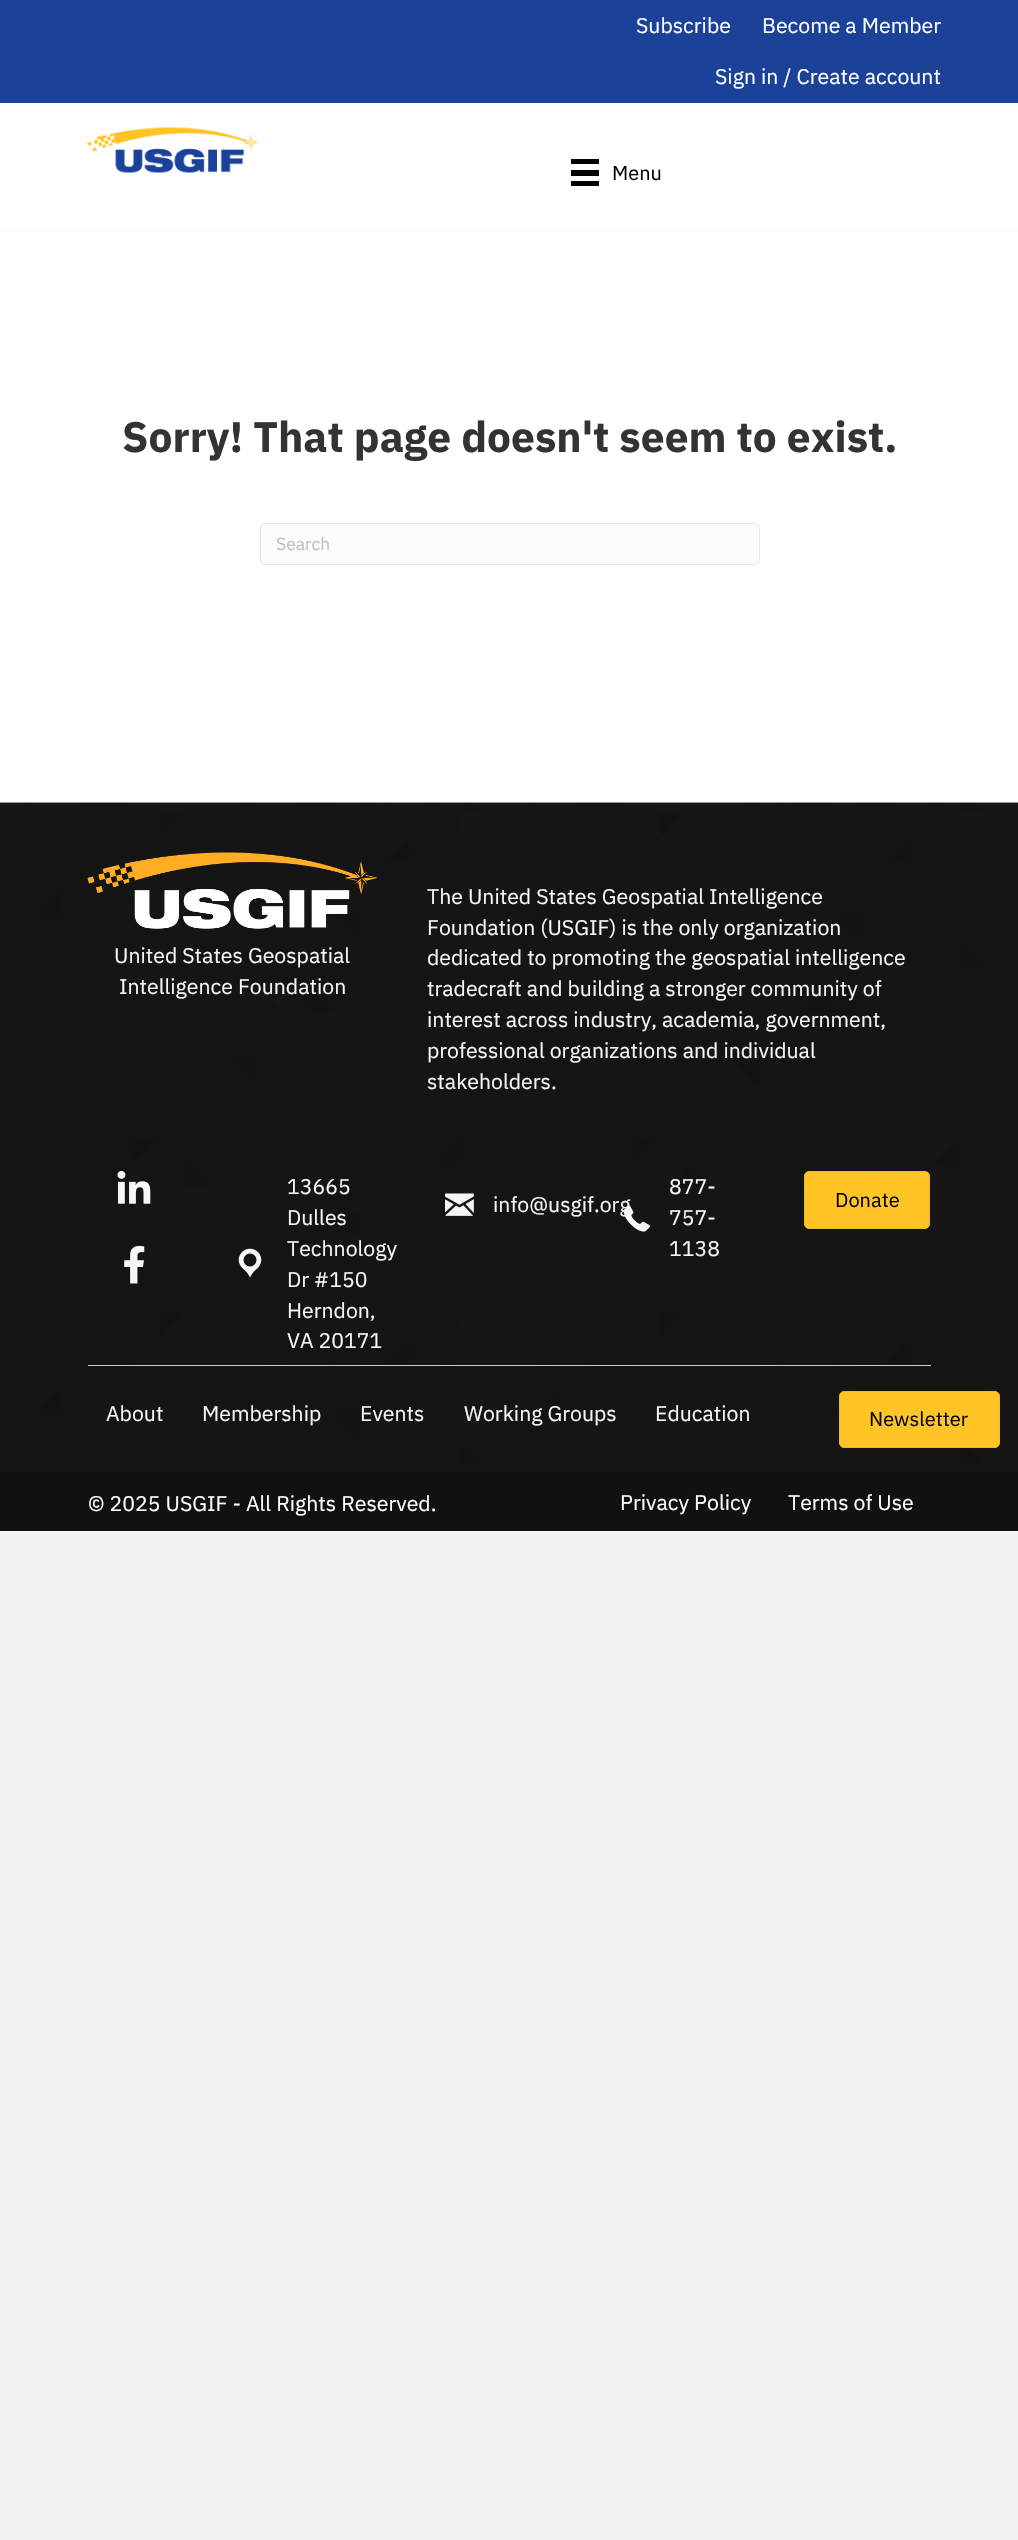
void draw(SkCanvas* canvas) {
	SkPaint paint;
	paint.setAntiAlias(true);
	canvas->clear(0xfff2f2f2);
	paint.setColor(0xff1b4298);
	canvas->drawRect(SkRect::MakeXYWH(0, 0, 1018, 103), paint);
	SkFont f1(fontMgr->matchFamilyStyle("IBM Plex Sans", SkFontStyle::Normal()), 21.25);
	f1.setSubpixel(true);
	paint.setColor(0xffffffff);
	canvas->drawString("Subscribe", 636, 33, f1, paint);
	canvas->drawString("Become a Member", 762, 33, f1, paint);
	canvas->drawString("Sign in / Create account", 715, 84, f1, paint);
	canvas->drawRect(SkRect::MakeXYWH(0, 103, 1018, 127), paint);
	paint.setColor(0xfff6f6f6);
	canvas->drawRect(SkRect::MakeXYWH(0, 230, 1018, 1), paint);
	canvas->drawImageRect(SkImages::DeferredFromEncodedData(SkData::MakeFromFileName("img1.png")), SkRect::MakeXYWH(87, 127, 174, 46), SkSamplingOptions());
	paint.setColor(0xff000000);
	canvas->drawRect(SkRect::MakeXYWH(571, 159, 28, 5), paint);
	canvas->drawRect(SkRect::MakeXYWH(571, 170, 28, 6), paint);
	canvas->drawRect(SkRect::MakeXYWH(571, 181, 28, 5), paint);
	SkFont f2(fontMgr->matchFamilyStyle("IBM Plex Sans", SkFontStyle::Normal()), 20);
	f2.setSubpixel(true);
	canvas->drawString("Menu", 612, 180, f2, paint);
	paint.setColor(0xffffffff);
	canvas->drawRect(SkRect::MakeXYWH(0, 231, 1018, 572), paint);
	SkFont f3(fontMgr->matchFamilyStyle("IBM Plex Sans", SkFontStyle::Bold()), 42.5);
	f3.setSubpixel(true);
	paint.setColor(0xff333333);
	canvas->drawString("Sorry! That page doesn't seem to exist.", 122, 452, f3, paint);
	paint.setColor(0xfffcfcfc);
	canvas->drawRoundRect(SkRect::MakeXYWH(260.5, 523.5, 499, 41), 4.5, 4.5, paint);
	paint.setStroke(true);
	paint.setStrokeWidth(1);
	paint.setColor(0xffe6e6e6);
	canvas->drawRoundRect(SkRect::MakeXYWH(260.5, 523.5, 499, 41), 4.5, 4.5, paint);
	SkFont f4(fontMgr->matchFamilyStyle("IBM Plex Sans", SkFontStyle::Normal()), 17.5);
	f4.setSubpixel(true);
	paint.setStroke(false);
	paint.setColor(0xffc0c0c0);
	canvas->drawString("Search", 276, 550, f4, paint);
	paint.setColor(0xff0d0d0d);
	canvas->drawRect(SkRect::MakeXYWH(0, 1472, 1018, 1), paint);
	canvas->drawImageRect(SkImages::DeferredFromEncodedData(SkData::MakeFromFileName("img2.png")), SkRect::MakeXYWH(0, 802, 1018, 671), SkSamplingOptions());
	canvas->drawImageRect(SkImages::DeferredFromEncodedData(SkData::MakeFromFileName("img3.png")), SkRect::MakeXYWH(87, 852, 291, 77), SkSamplingOptions());
	paint.setColor(0xfff6f6f6);
	canvas->drawString("United States Geospatial", 114, 963, f1, paint);
	canvas->drawString("Intelligence Foundation", 119, 994, f1, paint);
	canvas->drawString("The United States Geospatial Intelligence", 427, 904, f1, paint);
	canvas->drawString("Foundation (USGIF) is the only organization", 427, 935, f1, paint);
	canvas->drawString("dedicated to promoting the geospatial intelligence", 427, 965, f1, paint);
	canvas->drawString("tradecraft and building a stronger community of", 427, 996, f1, paint);
	canvas->drawString("interest across industry, academia, government,", 427, 1027, f1, paint);
	canvas->drawString("professional organizations and individual", 427, 1058, f1, paint);
	canvas->drawString("stakeholders.", 427, 1089, f1, paint);
	canvas->drawImageRect(SkImages::DeferredFromEncodedData(SkData::MakeFromFileName("img4.png")), SkRect::MakeXYWH(117, 1170, 34, 34), SkSamplingOptions());
	canvas->drawImageRect(SkImages::DeferredFromEncodedData(SkData::MakeFromFileName("img5.png")), SkRect::MakeXYWH(124, 1245, 21, 39), SkSamplingOptions());
	canvas->drawImageRect(SkImages::DeferredFromEncodedData(SkData::MakeFromFileName("img6.png")), SkRect::MakeXYWH(238, 1248, 24, 30), SkSamplingOptions());
	canvas->drawString("13665", 287, 1194, f1, paint);
	canvas->drawString("Dulles", 287, 1225, f1, paint);
	canvas->drawString("Technology", 287, 1256, f1, paint);
	canvas->drawString("Dr #150", 287, 1287, f1, paint);
	canvas->drawString("Herndon,", 287, 1318, f1, paint);
	canvas->drawString("VA 20171", 287, 1348, f1, paint);
	canvas->drawImageRect(SkImages::DeferredFromEncodedData(SkData::MakeFromFileName("img7.png")), SkRect::MakeXYWH(445, 1193, 29, 23), SkSamplingOptions());
	canvas->drawString("info@usgif.org", 493, 1212, f1, paint);
	canvas->drawImageRect(SkImages::DeferredFromEncodedData(SkData::MakeFromFileName("img8.png")), SkRect::MakeXYWH(623, 1205, 27, 27), SkSamplingOptions());
	canvas->drawString("877-", 669, 1194, f1, paint);
	canvas->drawString("757-", 669, 1225, f1, paint);
	canvas->drawString("1138", 669, 1256, f1, paint);
	paint.setColor(0xffffc425);
	canvas->drawRoundRect(SkRect::MakeXYWH(804.5, 1171.5, 125, 57), 4.5, 4.5, paint);
	paint.setStroke(true);
	paint.setColor(0xfff3b819);
	canvas->drawRoundRect(SkRect::MakeXYWH(804.5, 1171.5, 125, 57), 4.5, 4.5, paint);
	paint.setStroke(false);
	paint.setColor(0xff000000);
	canvas->drawString("Donate", 835, 1207, f2, paint);
	paint.setColor(0xffcccccc);
	canvas->drawRect(SkRect::MakeXYWH(88, 1365, 843, 1), paint);
	paint.setColor(0xfff6f6f6);
	canvas->drawString("About", 106, 1421, f1, paint);
	canvas->drawString("Membership", 202, 1421, f1, paint);
	canvas->drawString("Events", 360, 1421, f1, paint);
	canvas->drawString("Working Groups", 464, 1421, f1, paint);
	canvas->drawString("Education", 655, 1421, f1, paint);
	paint.setColor(0xffffc425);
	canvas->drawRoundRect(SkRect::MakeXYWH(839.5, 1391.5, 160, 56), 4.5, 4.5, paint);
	paint.setStroke(true);
	paint.setColor(0xfff3b819);
	canvas->drawRoundRect(SkRect::MakeXYWH(839.5, 1391.5, 160, 56), 4.5, 4.5, paint);
	paint.setStroke(false);
	paint.setColor(0xff000000);
	canvas->drawString("Newsletter", 869, 1426, f2, paint);
	paint.setColor(0xff111111);
	canvas->drawRect(SkRect::MakeXYWH(0, 1473, 1018, 58), paint);
	paint.setColor(0xffffffff);
	canvas->drawString("© 2025 USGIF - All Rights Reserved.", 88, 1511, f1, paint);
	canvas->drawString("Privacy Policy", 620, 1510, f1, paint);
	canvas->drawString("Terms of Use", 788, 1510, f1, paint);
}
